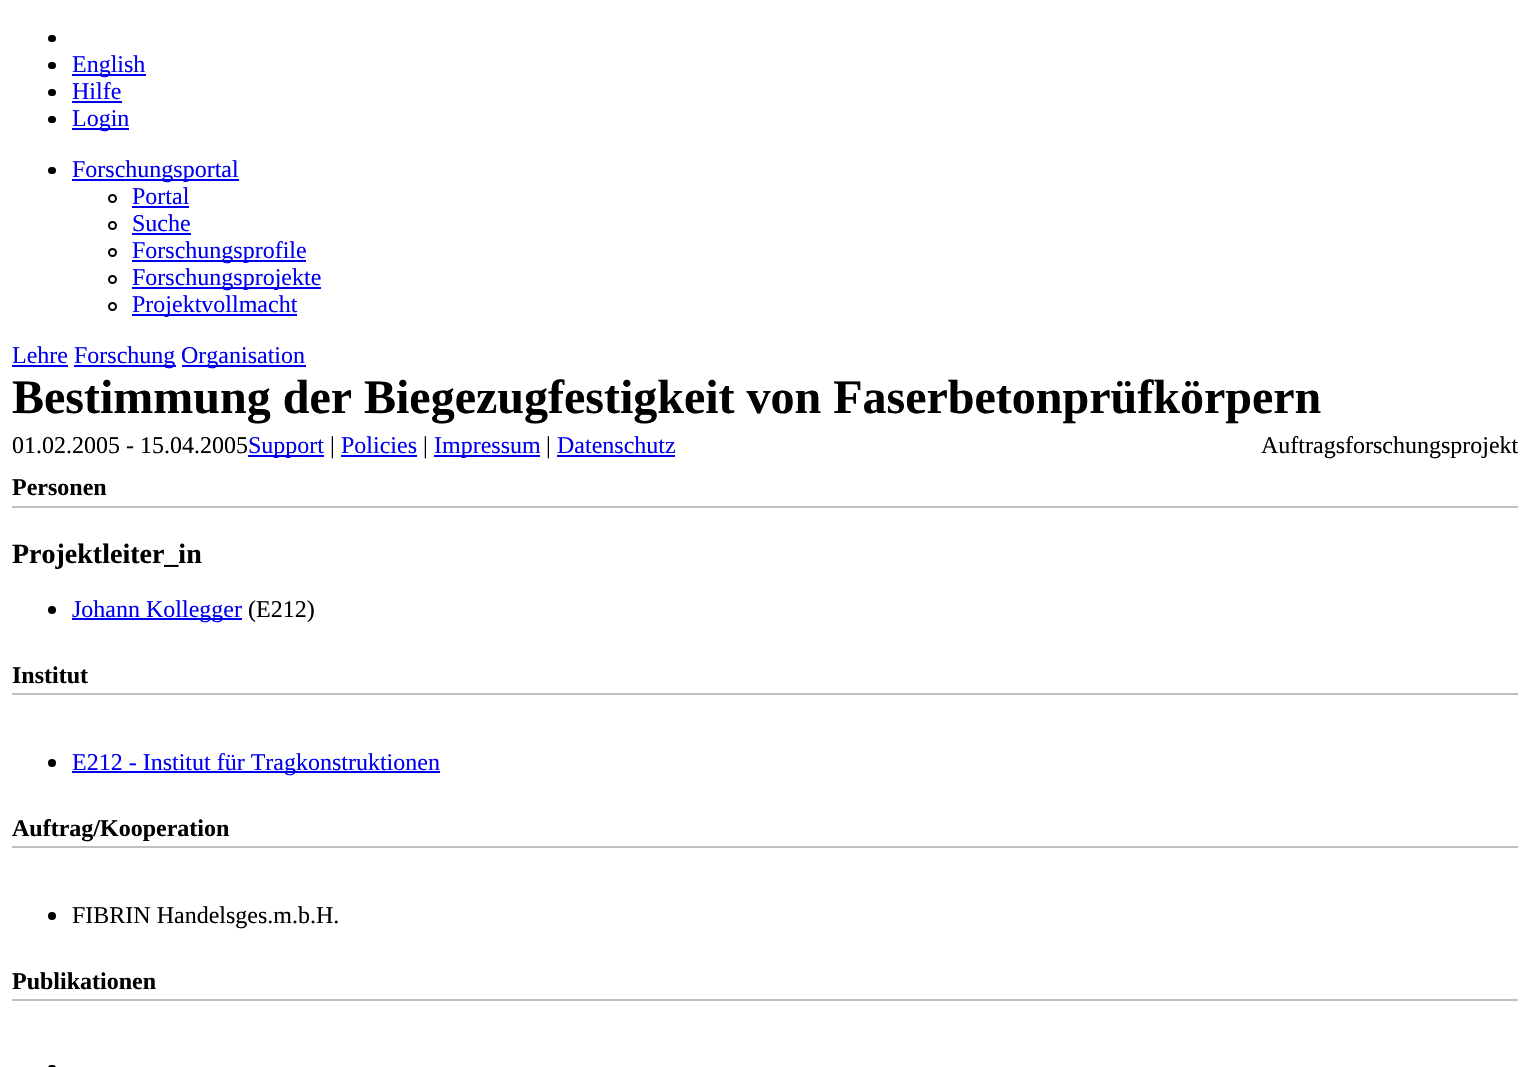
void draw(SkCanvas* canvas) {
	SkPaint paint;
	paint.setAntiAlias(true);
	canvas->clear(0xffffffff);
	paint.setColor(0xff000000);
	canvas->drawRoundRect(SkRect::MakeXYWH(48, 35, 8, 7), 3.5, 3.5, paint);
	canvas->drawRoundRect(SkRect::MakeXYWH(48, 62, 8, 7), 3.5, 3.5, paint);
	paint.setColor(0xff0000ee);
	canvas->drawRect(SkRect::MakeXYWH(72, 74, 74, 2), paint);
	SkFont f1(fontMgr->matchFamilyStyle("Liberation Serif", SkFontStyle::Normal()), 24);
	f1.setSubpixel(true);
	canvas->drawString("English", 72, 72, f1, paint);
	paint.setColor(0xff000000);
	canvas->drawRoundRect(SkRect::MakeXYWH(48, 89, 8, 7), 3.5, 3.5, paint);
	paint.setColor(0xff0000ee);
	canvas->drawString("Hilfe", 72, 99, f1, paint);
	canvas->drawRect(SkRect::MakeXYWH(72, 101, 50, 2), paint);
	paint.setColor(0xff000000);
	canvas->drawRoundRect(SkRect::MakeXYWH(48, 116, 8, 7), 3.5, 3.5, paint);
	paint.setColor(0xff0000ee);
	canvas->drawRect(SkRect::MakeXYWH(72, 128, 57, 2), paint);
	canvas->drawString("Login", 72, 126, f1, paint);
	paint.setColor(0xff000000);
	canvas->drawRoundRect(SkRect::MakeXYWH(48, 167, 8, 7), 3.5, 3.5, paint);
	paint.setColor(0xff0000ee);
	canvas->drawRect(SkRect::MakeXYWH(72, 179, 167, 2), paint);
	canvas->drawString("Forschungsportal", 72, 177, f1, paint);
	paint.setStroke(true);
	paint.setStrokeWidth(2);
	paint.setColor(0xff000000);
	canvas->drawCircle(112.5, 198.5, 3.5, paint);
	paint.setStroke(false);
	paint.setColor(0xff0000ee);
	canvas->drawString("Portal", 132, 204, f1, paint);
	canvas->drawRect(SkRect::MakeXYWH(132, 206, 57, 2), paint);
	paint.setStroke(true);
	paint.setColor(0xff000000);
	canvas->drawCircle(112.5, 225.5, 3.5, paint);
	paint.setStroke(false);
	paint.setColor(0xff0000ee);
	canvas->drawString("Suche", 132, 231, f1, paint);
	canvas->drawRect(SkRect::MakeXYWH(132, 233, 59, 2), paint);
	paint.setStroke(true);
	paint.setColor(0xff000000);
	canvas->drawCircle(112.5, 252.5, 3.5, paint);
	paint.setStroke(false);
	paint.setColor(0xff0000ee);
	canvas->drawRect(SkRect::MakeXYWH(132, 260, 174, 2), paint);
	canvas->drawString("Forschungsprofile", 132, 258, f1, paint);
	paint.setStroke(true);
	paint.setColor(0xff000000);
	canvas->drawCircle(112.5, 279.5, 3.5, paint);
	paint.setStroke(false);
	paint.setColor(0xff0000ee);
	canvas->drawRect(SkRect::MakeXYWH(132, 287, 189, 2), paint);
	canvas->drawString("Forschungsprojekte", 132, 285, f1, paint);
	paint.setStroke(true);
	paint.setColor(0xff000000);
	canvas->drawCircle(112.5, 306.5, 3.5, paint);
	paint.setStroke(false);
	paint.setColor(0xff0000ee);
	canvas->drawRect(SkRect::MakeXYWH(132, 314, 165, 2), paint);
	canvas->drawString("Projektvollmacht", 132, 312, f1, paint);
	canvas->drawString("Lehre", 12, 363, f1, paint);
	canvas->drawRect(SkRect::MakeXYWH(12, 365, 56, 2), paint);
	canvas->drawRect(SkRect::MakeXYWH(74, 365, 102, 2), paint);
	canvas->drawString("Forschung", 74, 363, f1, paint);
	canvas->drawRect(SkRect::MakeXYWH(182, 365, 124, 2), paint);
	canvas->drawString("Organisation", 181, 363, f1, paint);
	SkFont f2(fontMgr->matchFamilyStyle("Liberation Serif", SkFontStyle::Bold()), 48);
	f2.setSubpixel(true);
	paint.setColor(0xff000000);
	canvas->drawString("Bestimmung der Biegezugfestigkeit von Faserbetonprüfkörpern", 12, 413, f2, paint);
	canvas->drawString("01.02.2005 - 15.04.2005", 12, 453, f1, paint);
	canvas->drawString("Auftragsforschungsprojekt", 1261, 453, f1, paint);
	paint.setColor(0xffc0c0c0);
	canvas->drawRect(SkRect::MakeXYWH(12, 506, 1506, 2), paint);
	SkFont f3(fontMgr->matchFamilyStyle("Liberation Serif", SkFontStyle::Bold()), 24);
	f3.setSubpixel(true);
	paint.setColor(0xff000000);
	canvas->drawString("Personen", 12, 495, f3, paint);
	SkFont f4(fontMgr->matchFamilyStyle("Liberation Serif", SkFontStyle::Bold()), 28);
	f4.setSubpixel(true);
	canvas->drawString("Projektleiter_in", 12, 563, f4, paint);
	canvas->drawCircle(52, 610, 4, paint);
	paint.setColor(0xff0000ee);
	canvas->drawRect(SkRect::MakeXYWH(72, 618, 170, 2), paint);
	canvas->drawString("Johann Kollegger", 72, 617, f1, paint);
	paint.setColor(0xff000000);
	canvas->drawString("(E212)", 248, 617, f1, paint);
	paint.setColor(0xffc0c0c0);
	canvas->drawRect(SkRect::MakeXYWH(12, 693, 1506, 2), paint);
	paint.setColor(0xff000000);
	canvas->drawString("Institut", 12, 683, f3, paint);
	canvas->drawCircle(52, 763, 4, paint);
	paint.setColor(0xff0000ee);
	canvas->drawRect(SkRect::MakeXYWH(72, 771, 368, 2), paint);
	canvas->drawString("E212 - Institut für Tragkonstruktionen", 72, 770, f1, paint);
	paint.setColor(0xffc0c0c0);
	canvas->drawRect(SkRect::MakeXYWH(12, 846, 1506, 2), paint);
	paint.setColor(0xff000000);
	canvas->drawString("Auftrag/Kooperation", 12, 836, f3, paint);
	canvas->drawCircle(52, 916, 4, paint);
	canvas->drawString("FIBRIN Handelsges.m.b.H.", 72, 923, f1, paint);
	paint.setColor(0xffc0c0c0);
	canvas->drawRect(SkRect::MakeXYWH(12, 999, 1506, 2), paint);
	paint.setColor(0xff000000);
	canvas->drawString("Publikationen", 12, 989, f3, paint);
	canvas->drawRoundRect(SkRect::MakeXYWH(48, 1065, 8, 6), 4, 4, paint);
	paint.setColor(0xff0000ee);
	canvas->drawRect(SkRect::MakeXYWH(248, 455, 76, 2), paint);
	canvas->drawString("Support", 248, 453, f1, paint);
	paint.setColor(0xff000000);
	canvas->drawString("|", 330, 453, f1, paint);
	paint.setColor(0xff0000ee);
	canvas->drawString("Policies", 341, 453, f1, paint);
	canvas->drawRect(SkRect::MakeXYWH(341, 455, 76, 2), paint);
	paint.setColor(0xff000000);
	canvas->drawString("|", 423, 453, f1, paint);
	paint.setColor(0xff0000ee);
	canvas->drawRect(SkRect::MakeXYWH(434, 455, 106, 2), paint);
	canvas->drawString("Impressum", 434, 453, f1, paint);
	paint.setColor(0xff000000);
	canvas->drawString("|", 546, 453, f1, paint);
	paint.setColor(0xff0000ee);
	canvas->drawString("Datenschutz", 557, 453, f1, paint);
	canvas->drawRect(SkRect::MakeXYWH(557, 455, 118, 2), paint);
}
